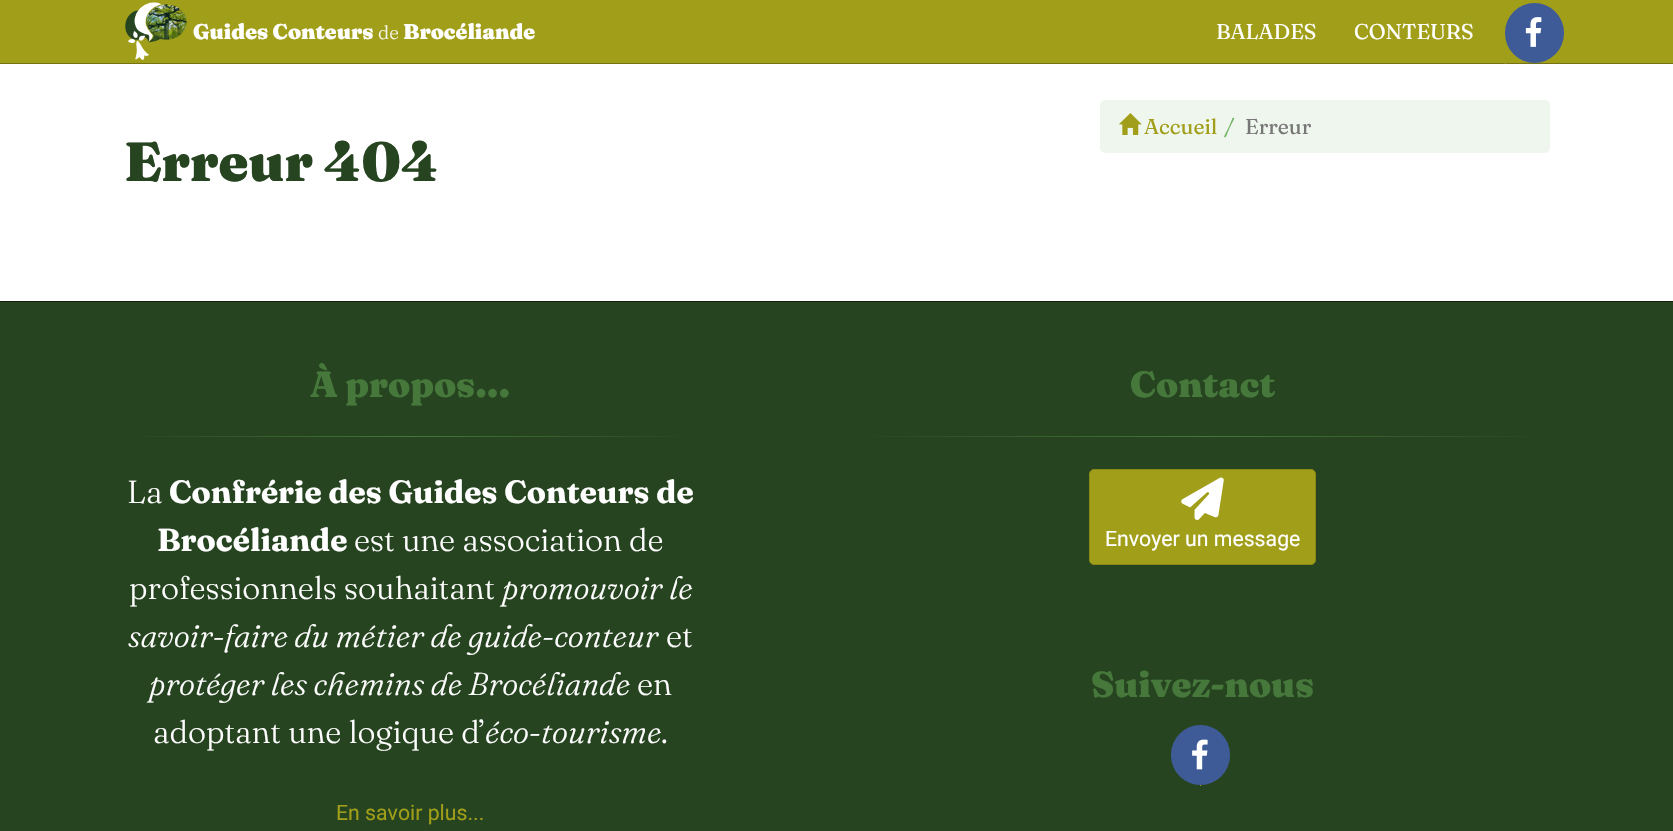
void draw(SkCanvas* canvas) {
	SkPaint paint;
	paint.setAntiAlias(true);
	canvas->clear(0xffffffff);
	paint.setColor(0xffa19f19);
	canvas->drawRect(SkRect::MakeXYWH(0, 0, 1673, 63), paint);
	paint.setColor(0xff757312);
	canvas->drawRect(SkRect::MakeXYWH(0, 63, 1673, 1), paint);
	canvas->drawImageRect(SkImages::DeferredFromEncodedData(SkData::MakeFromFileName("img1.png")), SkRect::MakeXYWH(125, 2, 62, 58), SkSamplingOptions());
	SkFont f1(fontMgr->matchFamilyStyle("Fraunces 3", SkFontStyle(900, SkFontStyle::kNormal_Width, SkFontStyle::kUpright_Slant)), 21.25);
	f1.setSubpixel(true);
	paint.setColor(0xffffffff);
	canvas->drawString("Guides Conteurs", 193, 39, f1, paint);
	SkFont f2(fontMgr->matchFamilyStyle("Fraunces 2", SkFontStyle(300, SkFontStyle::kNormal_Width, SkFontStyle::kUpright_Slant)), 19);
	f2.setSubpixel(true);
	paint.setColor(0xfff6f5e8);
	canvas->drawString("de", 378, 39, f2, paint);
	paint.setColor(0xffffffff);
	canvas->drawString("Brocéliande", 403, 39, f1, paint);
	SkFont f3(fontMgr->matchFamilyStyle("Fraunces", SkFontStyle::Normal()), 21.25);
	f3.setSubpixel(true);
	canvas->drawString("BALADES", 1216, 39, f3, paint);
	canvas->drawString("CONTEURS", 1354, 39, f3, paint);
	paint.setColor(0xffa19f19);
	canvas->drawRect(SkRect::MakeXYWH(1505, 63, 1, 1), paint);
	paint.setColor(0xff3e5b98);
	canvas->drawRoundRect(SkRect::MakeXYWH(1505, 3, 59, 60), 29.5, 29.5, paint);
	canvas->drawImageRect(SkImages::DeferredFromEncodedData(SkData::MakeFromFileName("img2.png")), SkRect::MakeXYWH(1525, 17, 17, 30), SkSamplingOptions());
	paint.setColor(0xffeff6ed);
	canvas->drawRoundRect(SkRect::MakeXYWH(1100, 100, 450, 53), 5, 5, paint);
	canvas->drawImageRect(SkImages::DeferredFromEncodedData(SkData::MakeFromFileName("img3.png")), SkRect::MakeXYWH(1119, 113, 23, 22), SkSamplingOptions());
	paint.setColor(0xffa19f19);
	canvas->drawString("Accueil", 1144, 134, f3, paint);
	paint.setColor(0xff72b464);
	canvas->drawString("/", 1224, 134, f3, paint);
	paint.setColor(0xff777777);
	canvas->drawString("Erreur", 1245, 134, f3, paint);
	SkFont f4(fontMgr->matchFamilyStyle("Fraunces", SkFontStyle(900, SkFontStyle::kNormal_Width, SkFontStyle::kUpright_Slant)), 55);
	f4.setSubpixel(true);
	paint.setColor(0xff274421);
	canvas->drawString("Erreur 404", 124, 181, f4, paint);
	canvas->drawRect(SkRect::MakeXYWH(0, 302, 1673, 529), paint);
	paint.setColor(0xff132210);
	canvas->drawRect(SkRect::MakeXYWH(0, 301, 1673, 1), paint);
	SkFont f5(fontMgr->matchFamilyStyle("Fraunces 2", SkFontStyle(900, SkFontStyle::kNormal_Width, SkFontStyle::kUpright_Slant)), 36.25);
	f5.setSubpixel(true);
	paint.setColor(0xff45783a);
	canvas->drawString("À propos...", 310, 397, f5, paint);
	{
		const SkColor colors[] = {0xff274421, 0xff45783a, 0xff274421};
		const float stops[] = {0, 0.5, 1};
		const SkPoint ends[] = {{125, 437}, {696, 437}};
		paint.setShader(SkGradientShader::MakeLinear(ends, colors, stops, 3, SkTileMode::kClamp));
		paint.setAlpha(255);
	}
	canvas->drawRect(SkRect::MakeXYWH(139, 436, 543, 1), paint);
	SkFont f6(fontMgr->matchFamilyStyle("Fraunces", SkFontStyle(300, SkFontStyle::kNormal_Width, SkFontStyle::kUpright_Slant)), 31.9);
	f6.setSubpixel(true);
	paint.setShader(nullptr);
	paint.setColor(0xffffffff);
	canvas->drawString("La", 127, 503, f6, paint);
	SkFont f7(fontMgr->matchFamilyStyle("Fraunces", SkFontStyle::Bold()), 31.9);
	f7.setSubpixel(true);
	canvas->drawString("Confrérie des Guides Conteurs de", 169, 503, f7, paint);
	canvas->drawString("Brocéliande", 157, 551, f7, paint);
	canvas->drawString("est une association de", 354, 551, f6, paint);
	canvas->drawString("professionnels souhaitant", 129, 599, f6, paint);
	SkFont f8(fontMgr->matchFamilyStyle("Fraunces", SkFontStyle(300, SkFontStyle::kNormal_Width, SkFontStyle::kItalic_Slant)), 31.9);
	f8.setSubpixel(true);
	canvas->drawString("promouvoir le", 502, 599, f8, paint);
	canvas->drawString("savoir-faire du métier de guide-conteur", 128, 647, f8, paint);
	canvas->drawString("et", 666, 647, f6, paint);
	canvas->drawString("protéger les chemins de Brocéliande", 149, 695, f8, paint);
	canvas->drawString("en", 637, 695, f6, paint);
	canvas->drawString("adoptant une logique d’", 153, 743, f6, paint);
	canvas->drawString("éco-tourisme", 485, 743, f8, paint);
	canvas->drawString(".", 661, 743, f6, paint);
	SkFont f9(fontMgr->matchFamilyStyle("Roboto", SkFontStyle::Normal()), 21.25);
	f9.setSubpixel(true);
	paint.setColor(0xffa19f19);
	canvas->drawString("En savoir plus...", 336, 820, f9, paint);
	paint.setColor(0xff45783a);
	canvas->drawString("Contact", 1130, 397, f5, paint);
	{
		const SkColor colors[] = {0xff274421, 0xff45783a, 0xff274421};
		const float stops[] = {0, 0.5, 1};
		const SkPoint ends[] = {{856, 437}, {1550, 437}};
		paint.setShader(SkGradientShader::MakeLinear(ends, colors, stops, 3, SkTileMode::kClamp));
		paint.setAlpha(255);
	}
	canvas->drawRect(SkRect::MakeXYWH(873, 436, 660, 1), paint);
	paint.setShader(nullptr);
	paint.setColor(0xffa19f19);
	canvas->drawRoundRect(SkRect::MakeXYWH(1089.5, 469.5, 226, 95), 4.5, 4.5, paint);
	paint.setStroke(true);
	paint.setStrokeWidth(1);
	paint.setColor(0xff8b8916);
	canvas->drawRoundRect(SkRect::MakeXYWH(1089.5, 469.5, 226, 95), 4.5, 4.5, paint);
	canvas->drawImageRect(SkImages::DeferredFromEncodedData(SkData::MakeFromFileName("img4.png")), SkRect::MakeXYWH(1181, 477, 43, 43), SkSamplingOptions());
	paint.setStroke(false);
	paint.setColor(0xffffffff);
	canvas->drawString("Envoyer un message", 1105, 546, f9, paint);
	paint.setColor(0xff45783a);
	canvas->drawString("Suivez-nous", 1091, 697, f5, paint);
	paint.setColor(0xffa19f19);
	canvas->drawRect(SkRect::MakeXYWH(1200, 785, 1, 1), paint);
	paint.setColor(0xff3e5b98);
	canvas->drawRoundRect(SkRect::MakeXYWH(1171, 725, 59, 60), 29.5, 29.5, paint);
	canvas->drawImageRect(SkImages::DeferredFromEncodedData(SkData::MakeFromFileName("img5.png")), SkRect::MakeXYWH(1192, 739, 16, 31), SkSamplingOptions());
}
